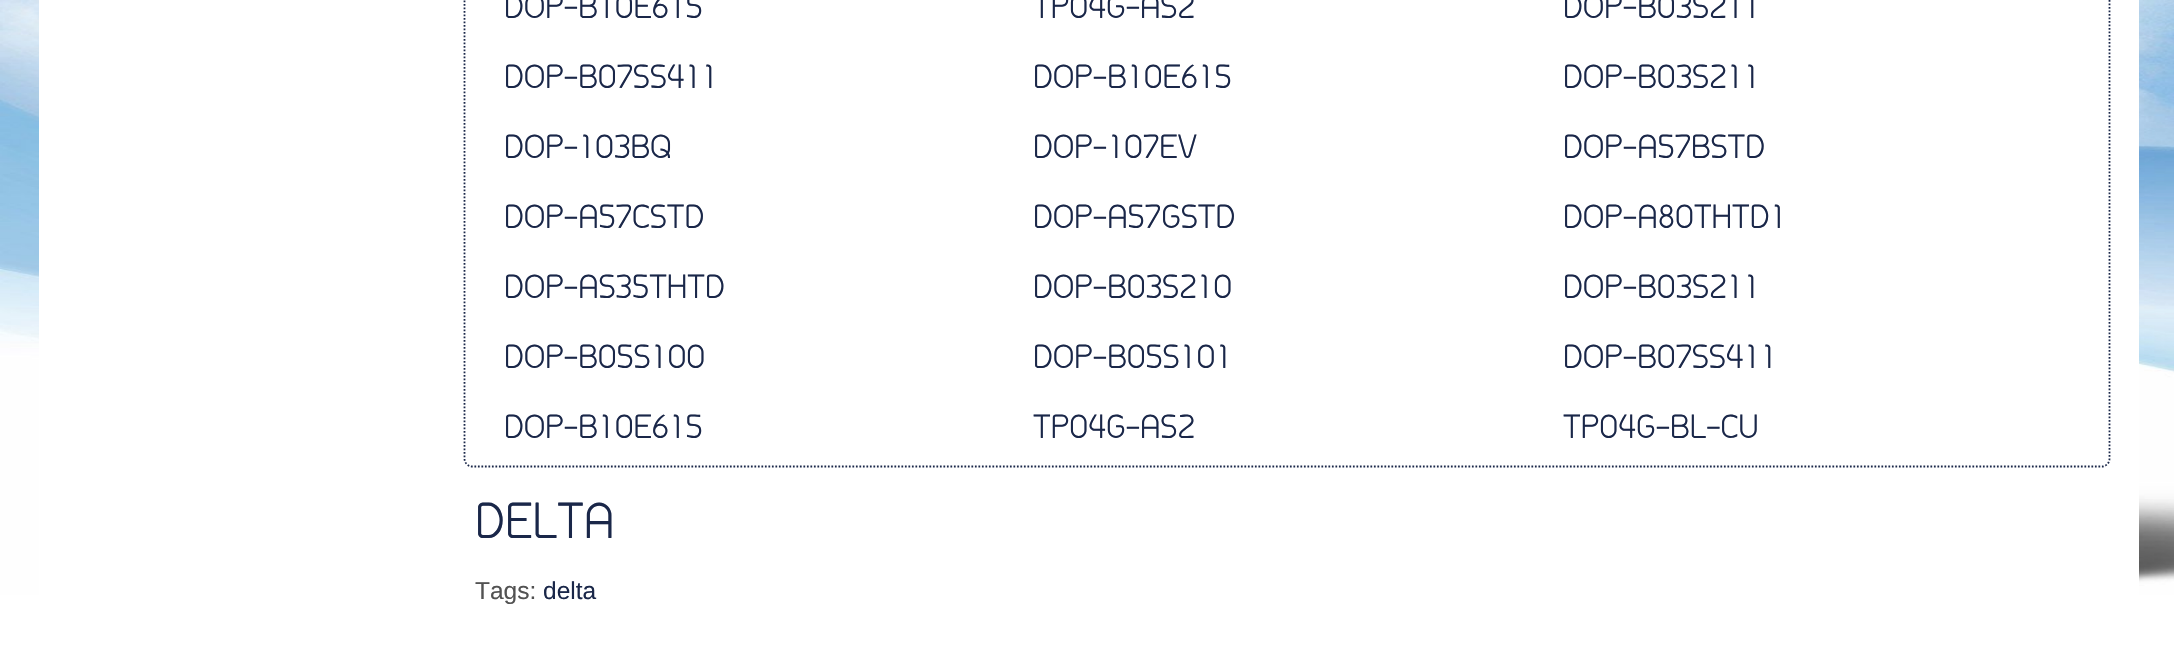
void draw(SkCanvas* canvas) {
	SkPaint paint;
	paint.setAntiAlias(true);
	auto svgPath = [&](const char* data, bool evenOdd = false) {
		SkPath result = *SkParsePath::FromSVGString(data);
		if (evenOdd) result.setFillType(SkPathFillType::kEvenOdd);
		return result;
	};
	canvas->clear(0xffffffff);
	canvas->drawImageRect(SkImages::DeferredFromEncodedData(SkData::MakeFromFileName("img1.png")), SkRect::MakeXYWH(0, 0, 2174, 595), SkSamplingOptions());
	paint.setColor(0xffffffff);
	canvas->drawRect(SkRect::MakeXYWH(39, 0, 2100, 595), paint);
	paint.setStroke(true);
	paint.setStrokeWidth(1.8);
	paint.setColor(0xff1a2749);
	paint.setPathEffect(SkDashPathEffect::Make({{1.75f, 1.75f}}, 0));
	canvas->drawPath(svgPath("M472.5-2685.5H2102C2106-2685.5 2109.5-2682 2109.5-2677.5V458.5C2109.5 463 2106 466.5 2102 466.5H472.5C468 466.5 464.5 463 464.5 458.5V-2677.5C464.5-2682 468-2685.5 472.5-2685.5Z"), paint);
	paint.setPathEffect(nullptr);
	SkFont f1(fontMgr->matchFamilyStyle("Circular", SkFontStyle::Normal()), 42);
	f1.setSubpixel(true);
	paint.setStroke(false);
	canvas->drawString("DOP-B10E615", 504, 18, f1, paint);
	canvas->drawString("TP04G-AS2", 1033, 18, f1, paint);
	canvas->drawString("DOP-B03S211", 1563, 18, f1, paint);
	canvas->drawString("DOP-B07SS411", 504, 88, f1, paint);
	canvas->drawString("DOP-B10E615", 1033, 88, f1, paint);
	canvas->drawString("DOP-B03S211", 1563, 88, f1, paint);
	canvas->drawString("DOP-103BQ", 504, 158, f1, paint);
	canvas->drawString("DOP-107EV", 1033, 158, f1, paint);
	canvas->drawString("DOP-A57BSTD", 1563, 158, f1, paint);
	canvas->drawString("DOP-A57CSTD", 504, 228, f1, paint);
	canvas->drawString("DOP-A57GSTD", 1033, 228, f1, paint);
	canvas->drawString("DOP-A80THTD1", 1563, 228, f1, paint);
	canvas->drawString("DOP-AS35THTD", 504, 298, f1, paint);
	canvas->drawString("DOP-B03S210", 1033, 298, f1, paint);
	canvas->drawString("DOP-B03S211", 1563, 298, f1, paint);
	canvas->drawString("DOP-B05S100", 504, 368, f1, paint);
	canvas->drawString("DOP-B05S101", 1033, 368, f1, paint);
	canvas->drawString("DOP-B07SS411", 1563, 368, f1, paint);
	canvas->drawString("DOP-B10E615", 504, 438, f1, paint);
	canvas->drawString("TP04G-AS2", 1033, 438, f1, paint);
	canvas->drawString("TP04G-BL-CU", 1563, 438, f1, paint);
	SkFont f2(fontMgr->matchFamilyStyle("Circular", SkFontStyle::Normal()), 63);
	f2.setSubpixel(true);
	canvas->drawString("DELTA", 475, 538, f2, paint);
	SkFont f3(fontMgr->matchFamilyStyle("Liberation Sans", SkFontStyle::Normal()), 24.5);
	f3.setSubpixel(true);
	paint.setColor(0xff525252);
	canvas->drawString("Tags:", 475, 599, f3, paint);
	paint.setColor(0xff1a2749);
	canvas->drawString("delta", 543, 599, f3, paint);
}
